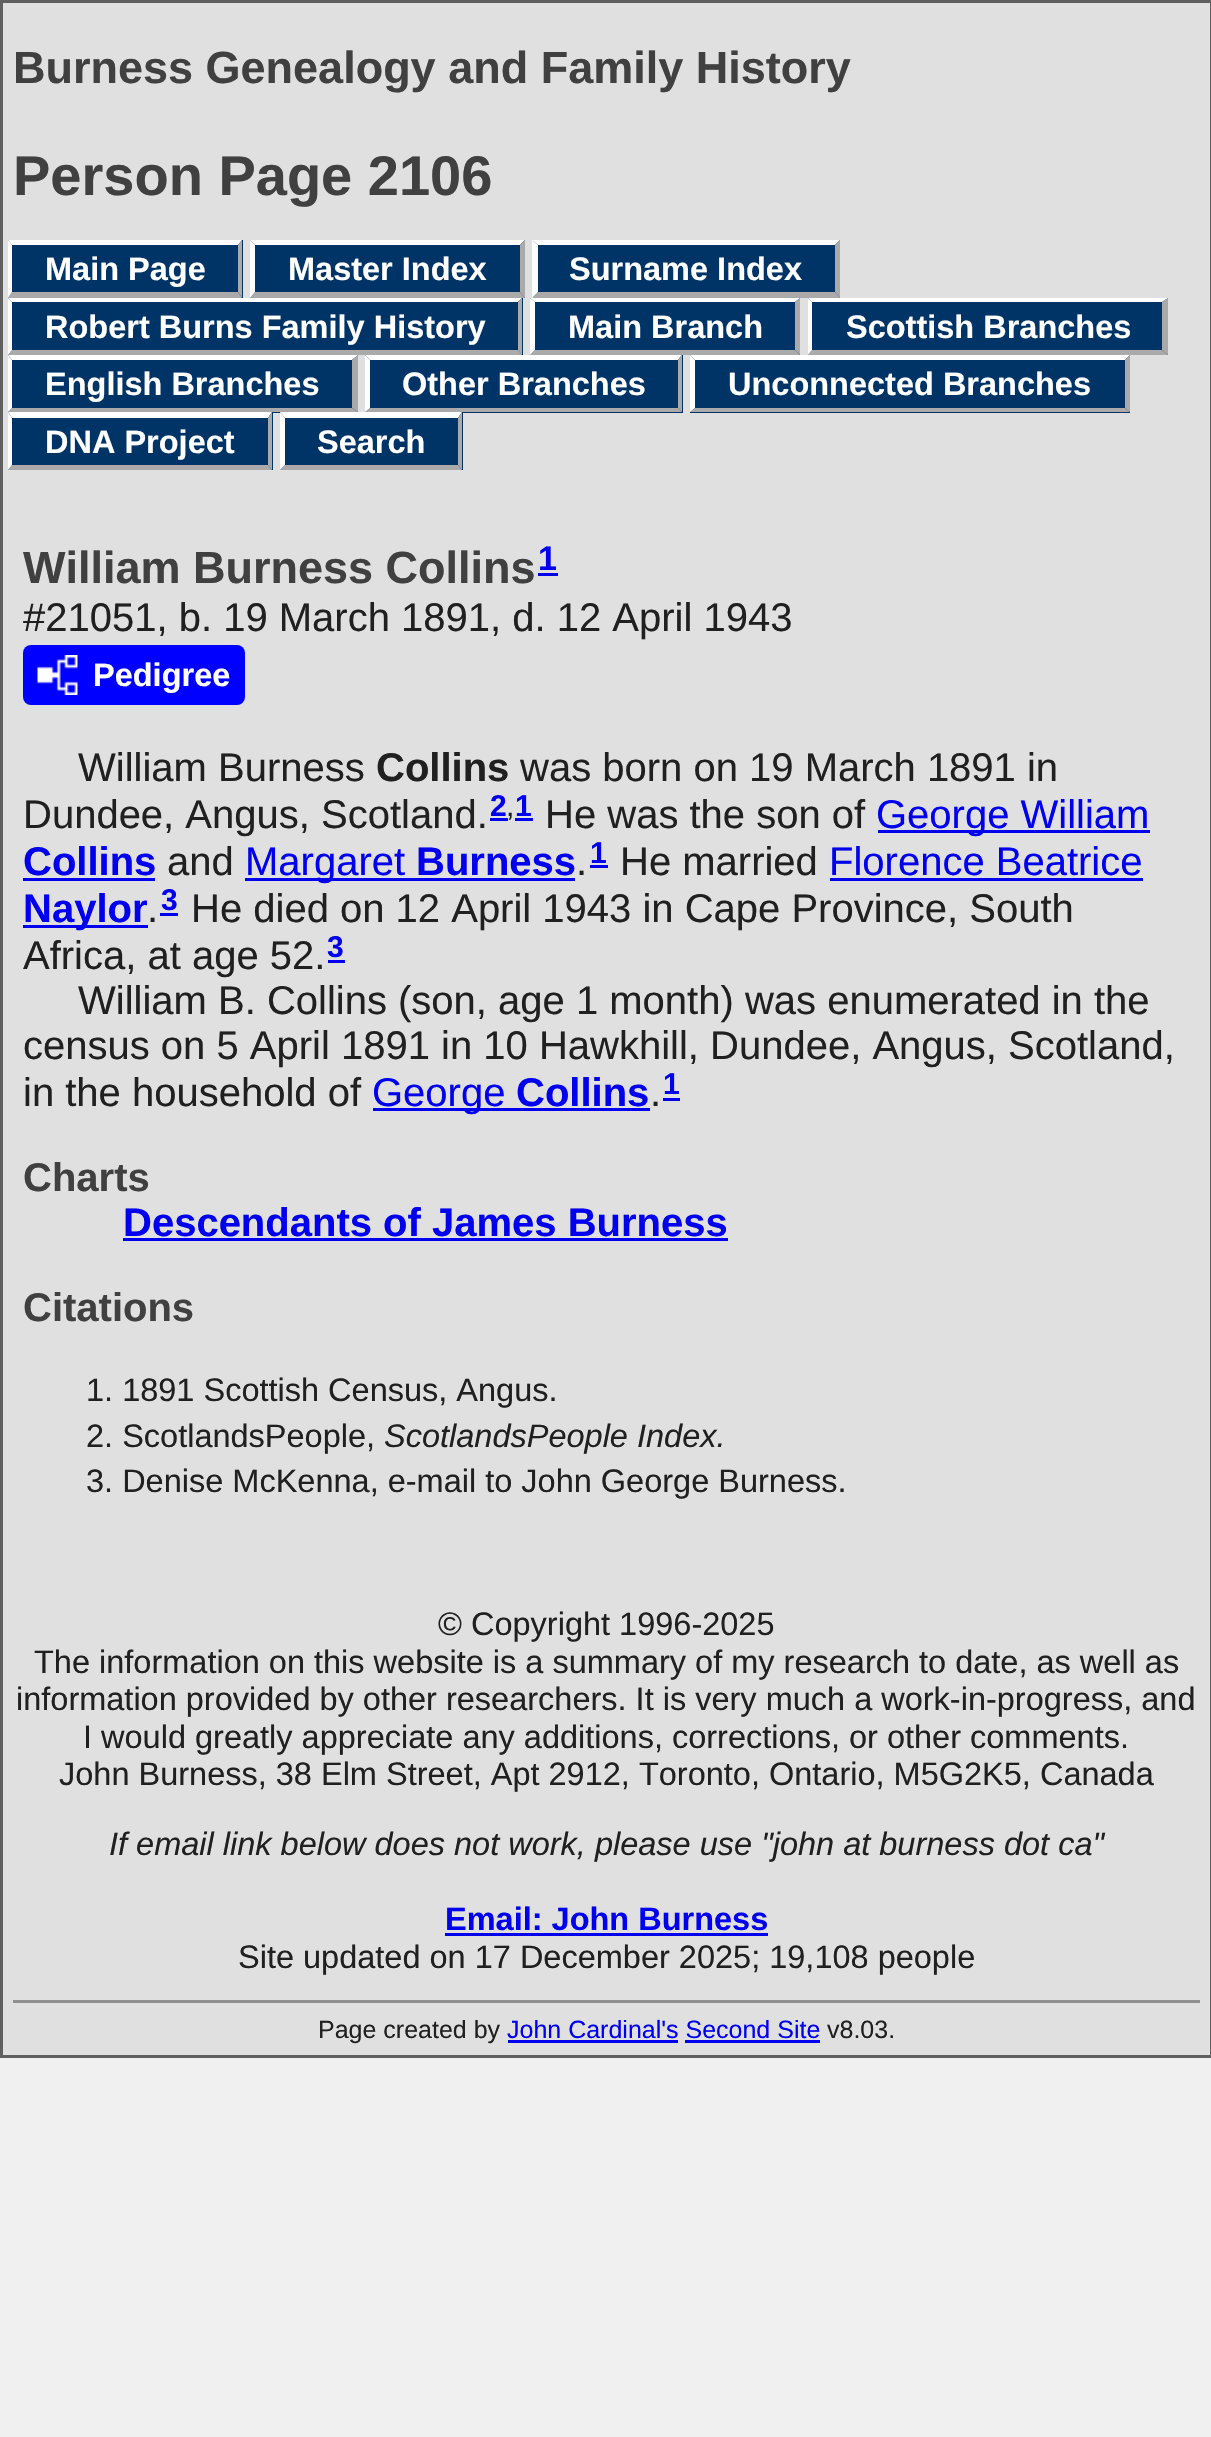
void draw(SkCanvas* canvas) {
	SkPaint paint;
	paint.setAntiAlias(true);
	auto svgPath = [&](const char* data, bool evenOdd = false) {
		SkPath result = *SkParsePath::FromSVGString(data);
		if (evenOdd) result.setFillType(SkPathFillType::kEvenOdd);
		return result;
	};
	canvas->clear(0xfff0f0f0);
	paint.setColor(0xffe0e0e0);
	canvas->drawRect(SkRect::MakeXYWH(1.5, 1.5, 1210, 2055), paint);
	paint.setStroke(true);
	paint.setStrokeWidth(3);
	paint.setColor(0xff606060);
	canvas->drawRect(SkRect::MakeXYWH(1.5, 1.5, 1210, 2055), paint);
	SkFont f1(fontMgr->matchFamilyStyle("Liberation Sans", SkFontStyle::Bold()), 45);
	f1.setSubpixel(true);
	paint.setStroke(false);
	paint.setColor(0xff404040);
	canvas->drawString("Burness Genealogy and Family History", 13, 83, f1, paint);
	SkFont f2(fontMgr->matchFamilyStyle("Liberation Sans", SkFontStyle::Bold()), 56);
	f2.setSubpixel(true);
	canvas->drawString("Person Page 2106", 13, 195, f2, paint);
	paint.setColor(0xff003366);
	canvas->drawRect(SkRect::MakeXYWH(8, 240, 235, 58), paint);
	paint.setColor(0xffffffff);
	canvas->drawPath(svgPath("M8 240H242L238 245H12Z"), paint);
	paint.setColor(0xffaaaaaa);
	canvas->drawPath(svgPath("M242 240V298L238 292V245Z"), paint);
	canvas->drawPath(svgPath("M242 298H8L12 292H238Z"), paint);
	paint.setColor(0xffffffff);
	canvas->drawPath(svgPath("M8 298V240L12 245V292Z"), paint);
	SkFont f3(fontMgr->matchFamilyStyle("Liberation Sans", SkFontStyle::Bold()), 32.5);
	f3.setSubpixel(true);
	canvas->drawString("Main Page", 45, 280, f3, paint);
	paint.setColor(0xff003366);
	canvas->drawRect(SkRect::MakeXYWH(250, 240, 275, 58), paint);
	paint.setColor(0xffffffff);
	canvas->drawPath(svgPath("M250 240H525L520 245H255Z"), paint);
	paint.setColor(0xffaaaaaa);
	canvas->drawPath(svgPath("M525 240V298L520 292V245Z"), paint);
	canvas->drawPath(svgPath("M525 298H250L255 292H520Z"), paint);
	paint.setColor(0xffffffff);
	canvas->drawPath(svgPath("M250 298V240L255 245V292Z"), paint);
	canvas->drawString("Master Index", 288, 280, f3, paint);
	paint.setColor(0xff003366);
	canvas->drawRect(SkRect::MakeXYWH(533, 240, 307, 58), paint);
	paint.setColor(0xffffffff);
	canvas->drawPath(svgPath("M532 240H840L835 245H538Z"), paint);
	paint.setColor(0xffaaaaaa);
	canvas->drawPath(svgPath("M840 240V298L835 292V245Z"), paint);
	canvas->drawPath(svgPath("M840 298H532L538 292H835Z"), paint);
	paint.setColor(0xffffffff);
	canvas->drawPath(svgPath("M532 298V240L538 245V292Z"), paint);
	canvas->drawString("Surname Index", 569, 280, f3, paint);
	paint.setColor(0xff003366);
	canvas->drawRect(SkRect::MakeXYWH(8, 298, 515, 57), paint);
	paint.setColor(0xffffffff);
	canvas->drawPath(svgPath("M8 298H522L518 302H12Z"), paint);
	paint.setColor(0xffaaaaaa);
	canvas->drawPath(svgPath("M522 298V355L518 350V302Z"), paint);
	canvas->drawPath(svgPath("M522 355H8L12 350H518Z"), paint);
	paint.setColor(0xffffffff);
	canvas->drawPath(svgPath("M8 355V298L12 302V350Z"), paint);
	canvas->drawString("Robert Burns Family History", 45, 338, f3, paint);
	paint.setColor(0xff003366);
	canvas->drawRect(SkRect::MakeXYWH(530, 298, 270, 57), paint);
	paint.setColor(0xffffffff);
	canvas->drawPath(svgPath("M530 298H800L795 302H535Z"), paint);
	paint.setColor(0xffaaaaaa);
	canvas->drawPath(svgPath("M800 298V355L795 350V302Z"), paint);
	canvas->drawPath(svgPath("M800 355H530L535 350H795Z"), paint);
	paint.setColor(0xffffffff);
	canvas->drawPath(svgPath("M530 355V298L535 302V350Z"), paint);
	canvas->drawString("Main Branch", 568, 338, f3, paint);
	paint.setColor(0xff003366);
	canvas->drawRect(SkRect::MakeXYWH(808, 298, 360, 57), paint);
	paint.setColor(0xffffffff);
	canvas->drawPath(svgPath("M808 298H1168L1162 302H812Z"), paint);
	paint.setColor(0xffaaaaaa);
	canvas->drawPath(svgPath("M1168 298V355L1162 350V302Z"), paint);
	canvas->drawPath(svgPath("M1168 355H808L812 350H1162Z"), paint);
	paint.setColor(0xffffffff);
	canvas->drawPath(svgPath("M808 355V298L812 302V350Z"), paint);
	canvas->drawString("Scottish Branches", 846, 338, f3, paint);
	paint.setColor(0xff003366);
	canvas->drawRect(SkRect::MakeXYWH(8, 355, 350, 58), paint);
	paint.setColor(0xffffffff);
	canvas->drawPath(svgPath("M8 355H358L352 360H12Z"), paint);
	paint.setColor(0xffaaaaaa);
	canvas->drawPath(svgPath("M358 355V412L352 408V360Z"), paint);
	canvas->drawPath(svgPath("M358 412H8L12 408H352Z"), paint);
	paint.setColor(0xffffffff);
	canvas->drawPath(svgPath("M8 412V355L12 360V408Z"), paint);
	canvas->drawString("English Branches", 45, 395, f3, paint);
	paint.setColor(0xff003366);
	canvas->drawRect(SkRect::MakeXYWH(365, 355, 318, 58), paint);
	paint.setColor(0xffffffff);
	canvas->drawPath(svgPath("M365 355H682L678 360H370Z"), paint);
	paint.setColor(0xffaaaaaa);
	canvas->drawPath(svgPath("M682 355V412L678 408V360Z"), paint);
	canvas->drawPath(svgPath("M682 412H365L370 408H678Z"), paint);
	paint.setColor(0xffffffff);
	canvas->drawPath(svgPath("M365 412V355L370 360V408Z"), paint);
	canvas->drawString("Other Branches", 402, 395, f3, paint);
	paint.setColor(0xff003366);
	canvas->drawRect(SkRect::MakeXYWH(690, 355, 440, 58), paint);
	paint.setColor(0xffffffff);
	canvas->drawPath(svgPath("M690 355H1130L1125 360H695Z"), paint);
	paint.setColor(0xffaaaaaa);
	canvas->drawPath(svgPath("M1130 355V412L1125 408V360Z"), paint);
	canvas->drawPath(svgPath("M1130 412H690L695 408H1125Z"), paint);
	paint.setColor(0xffffffff);
	canvas->drawPath(svgPath("M690 412V355L695 360V408Z"), paint);
	canvas->drawString("Unconnected Branches", 728, 395, f3, paint);
	paint.setColor(0xff003366);
	canvas->drawRect(SkRect::MakeXYWH(8, 413, 265, 57), paint);
	paint.setColor(0xffffffff);
	canvas->drawPath(svgPath("M8 412H272L268 418H12Z"), paint);
	paint.setColor(0xffaaaaaa);
	canvas->drawPath(svgPath("M272 412V470L268 465V418Z"), paint);
	canvas->drawPath(svgPath("M272 470H8L12 465H268Z"), paint);
	paint.setColor(0xffffffff);
	canvas->drawPath(svgPath("M8 470V412L12 418V465Z"), paint);
	canvas->drawString("DNA Project", 45, 453, f3, paint);
	paint.setColor(0xff003366);
	canvas->drawRect(SkRect::MakeXYWH(280, 413, 183, 57), paint);
	paint.setColor(0xffffffff);
	canvas->drawPath(svgPath("M280 412H462L458 418H285Z"), paint);
	paint.setColor(0xffaaaaaa);
	canvas->drawPath(svgPath("M462 412V470L458 465V418Z"), paint);
	canvas->drawPath(svgPath("M462 470H280L285 465H458Z"), paint);
	paint.setColor(0xffffffff);
	canvas->drawPath(svgPath("M280 470V412L285 418V465Z"), paint);
	canvas->drawString("Search", 317, 453, f3, paint);
	paint.setColor(0xff404040);
	canvas->drawString("William Burness Collins", 23, 583, f1, paint);
	SkFont f4(fontMgr->matchFamilyStyle("Liberation Sans", SkFontStyle::Bold()), 34);
	f4.setSubpixel(true);
	paint.setColor(0xff0000ee);
	canvas->drawString("1", 538, 570, f4, paint);
	canvas->drawRect(SkRect::MakeXYWH(538, 573, 20, 3), paint);
	SkFont f5(fontMgr->matchFamilyStyle("Liberation Sans", SkFontStyle::Normal()), 40);
	f5.setSubpixel(true);
	paint.setColor(0xff202020);
	canvas->drawString("#21051, b. 19 March 1891, d. 12 April 1943", 23, 631, f5, paint);
	paint.setColor(0xff0000ff);
	canvas->drawRoundRect(SkRect::MakeXYWH(23, 645, 222, 60), 8, 8, paint);
	canvas->drawImageRect(SkImages::DeferredFromEncodedData(SkData::MakeFromFileName("img1.png")), SkRect::MakeXYWH(37, 655, 41, 40), SkSamplingOptions());
	paint.setColor(0xffffffff);
	canvas->drawString("Pedigree", 93, 686, f3, paint);
	paint.setColor(0xff202020);
	canvas->drawString("William Burness", 78, 781, f5, paint);
	SkFont f6(fontMgr->matchFamilyStyle("Liberation Sans", SkFontStyle::Bold()), 40);
	f6.setSubpixel(true);
	canvas->drawString("Collins", 376, 781, f6, paint);
	canvas->drawString("was born on 19 March 1891 in", 520, 781, f5, paint);
	canvas->drawString("Dundee, Angus, Scotland.", 23, 828, f5, paint);
	SkFont f7(fontMgr->matchFamilyStyle("Liberation Sans", SkFontStyle::Bold()), 30);
	f7.setSubpixel(true);
	paint.setColor(0xff0000ee);
	canvas->drawString("2 1", 490, 816, f7, paint);
	paint.setColor(0xff202020);
	canvas->drawString("He was the son of", 545, 828, f5, paint);
	paint.setColor(0xff0000ee);
	canvas->drawRect(SkRect::MakeXYWH(878, 830, 272, 3), paint);
	canvas->drawString("George William", 876, 828, f5, paint);
	SkFont f8(fontMgr->matchFamilyStyle("Liberation Sans", SkFontStyle::Normal()), 30);
	f8.setSubpixel(true);
	paint.setColor(0xff202020);
	canvas->drawString(",", 506, 816, f8, paint);
	paint.setColor(0xff0000ee);
	canvas->drawRect(SkRect::MakeXYWH(490, 818, 18, 3), paint);
	canvas->drawRect(SkRect::MakeXYWH(515, 818, 18, 3), paint);
	canvas->drawString("Collins", 23, 875, f6, paint);
	canvas->drawRect(SkRect::MakeXYWH(23, 878, 132, 3), paint);
	paint.setColor(0xff202020);
	canvas->drawString("and", 167, 875, f5, paint);
	paint.setColor(0xff0000ee);
	canvas->drawRect(SkRect::MakeXYWH(245, 878, 330, 3), paint);
	canvas->drawString("Margaret", 245, 875, f5, paint);
	canvas->drawString("Burness", 416, 875, f6, paint);
	paint.setColor(0xff202020);
	canvas->drawString(".", 576, 875, f5, paint);
	paint.setColor(0xff0000ee);
	canvas->drawString("1", 590, 863, f7, paint);
	canvas->drawRect(SkRect::MakeXYWH(590, 865, 18, 3), paint);
	paint.setColor(0xff202020);
	canvas->drawString("He married", 620, 875, f5, paint);
	paint.setColor(0xff0000ee);
	canvas->drawString("Florence Beatrice", 829, 875, f5, paint);
	canvas->drawRect(SkRect::MakeXYWH(830, 878, 313, 3), paint);
	canvas->drawRect(SkRect::MakeXYWH(23, 925, 125, 3), paint);
	canvas->drawString("Naylor", 23, 922, f6, paint);
	paint.setColor(0xff202020);
	canvas->drawString(".", 147, 922, f5, paint);
	paint.setColor(0xff0000ee);
	canvas->drawString("3", 161, 910, f7, paint);
	canvas->drawRect(SkRect::MakeXYWH(160, 913, 18, 3), paint);
	paint.setColor(0xff202020);
	canvas->drawString("He died on 12 April 1943 in Cape Province, South", 191, 922, f5, paint);
	canvas->drawString("Africa, at age 52.", 23, 969, f5, paint);
	paint.setColor(0xff0000ee);
	canvas->drawString("3", 327, 957, f7, paint);
	canvas->drawRect(SkRect::MakeXYWH(328, 960, 17, 3), paint);
	paint.setColor(0xff202020);
	canvas->drawString("William B. Collins (son, age 1 month) was enumerated in the", 78, 1014, f5, paint);
	canvas->drawString("census on 5 April 1891 in 10 Hawkhill, Dundee, Angus, Scotland,", 23, 1059, f5, paint);
	canvas->drawString("in the household of", 23, 1106, f5, paint);
	paint.setColor(0xff0000ee);
	canvas->drawRect(SkRect::MakeXYWH(373, 1108, 277, 3), paint);
	canvas->drawString("George", 372, 1106, f5, paint);
	canvas->drawString("Collins", 516, 1106, f6, paint);
	paint.setColor(0xff202020);
	canvas->drawString(".", 650, 1106, f5, paint);
	paint.setColor(0xff0000ee);
	canvas->drawString("1", 663, 1094, f7, paint);
	canvas->drawRect(SkRect::MakeXYWH(663, 1098, 17, 3), paint);
	paint.setColor(0xff404040);
	canvas->drawString("Charts", 23, 1191, f6, paint);
	paint.setColor(0xff0000ee);
	canvas->drawString("Descendants of James Burness", 123, 1236, f6, paint);
	canvas->drawRect(SkRect::MakeXYWH(123, 1238, 605, 3), paint);
	paint.setColor(0xff404040);
	canvas->drawString("Citations", 23, 1321, f6, paint);
	SkFont f9(fontMgr->matchFamilyStyle("Liberation Sans", SkFontStyle::Normal()), 32.5);
	f9.setSubpixel(true);
	paint.setColor(0xff202020);
	canvas->drawString("1. 1891 Scottish Census, Angus.", 86, 1401, f9, paint);
	canvas->drawString("2. ScotlandsPeople,", 86, 1447, f9, paint);
	SkFont f10(fontMgr->matchFamilyStyle("Liberation Sans", SkFontStyle::Italic()), 32.5);
	f10.setSubpixel(true);
	canvas->drawString("ScotlandsPeople Index.", 384, 1447, f10, paint);
	canvas->drawString("3. Denise McKenna, e-mail to John George Burness.", 86, 1492, f9, paint);
	canvas->drawString("© Copyright 1996-2025", 438, 1635, f9, paint);
	canvas->drawString("The information on this website is a summary of my research to date, as well as", 34, 1673, f9, paint);
	canvas->drawString("information provided by other researchers. It is very much a work-in-progress, and", 16, 1710, f9, paint);
	canvas->drawString("I would greatly appreciate any additions, corrections, or other comments.", 83, 1748, f9, paint);
	canvas->drawString("John Burness, 38 Elm Street, Apt 2912, Toronto, Ontario, M5G2K5, Canada", 59, 1785, f9, paint);
	canvas->drawString("If email link below does not work, please use \"john at burness dot ca\"", 109, 1855, f10, paint);
	paint.setColor(0xff0000ee);
	canvas->drawString("Email: John Burness", 445, 1930, f3, paint);
	canvas->drawRect(SkRect::MakeXYWH(445, 1933, 323, 3), paint);
	paint.setColor(0xff202020);
	canvas->drawString("Site updated on 17 December 2025; 19,108 people", 238, 1968, f9, paint);
	paint.setColor(0xff909090);
	canvas->drawRect(SkRect::MakeXYWH(13, 2000, 1187, 3), paint);
	SkFont f11(fontMgr->matchFamilyStyle("Liberation Sans", SkFontStyle::Normal()), 25);
	f11.setSubpixel(true);
	paint.setColor(0xff202020);
	canvas->drawString("Page created by", 318, 2038, f11, paint);
	paint.setColor(0xff0000ee);
	canvas->drawString("John Cardinal's Second Site", 507, 2038, f11, paint);
	canvas->drawRect(SkRect::MakeXYWH(508, 2040, 170, 3), paint);
	paint.setColor(0xff202020);
	canvas->drawString("v8.03.", 827, 2038, f11, paint);
	paint.setColor(0xff0000ee);
	canvas->drawRect(SkRect::MakeXYWH(685, 2040, 135, 3), paint);
}
